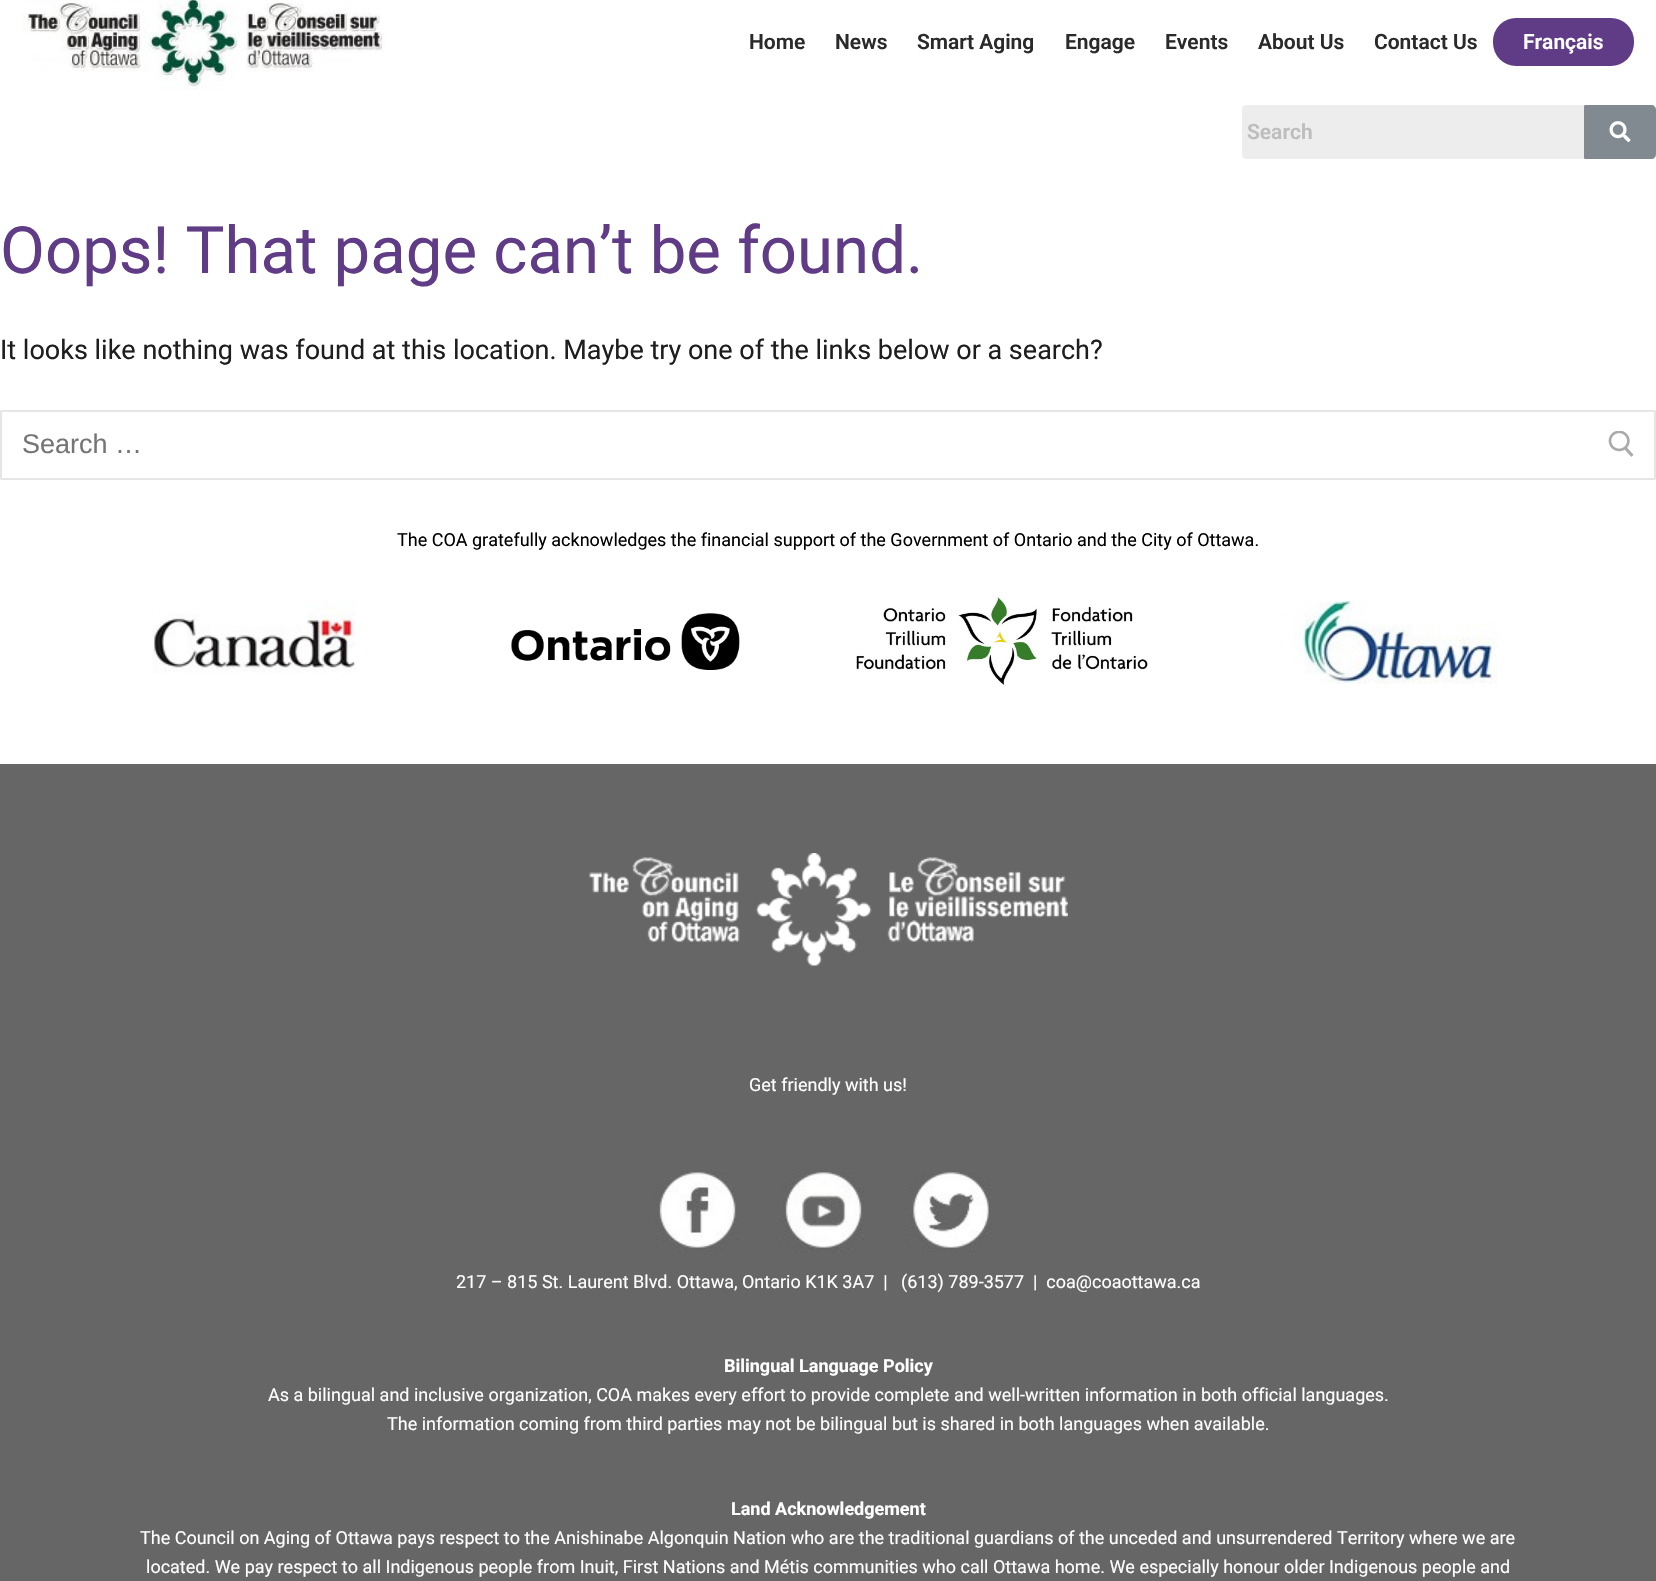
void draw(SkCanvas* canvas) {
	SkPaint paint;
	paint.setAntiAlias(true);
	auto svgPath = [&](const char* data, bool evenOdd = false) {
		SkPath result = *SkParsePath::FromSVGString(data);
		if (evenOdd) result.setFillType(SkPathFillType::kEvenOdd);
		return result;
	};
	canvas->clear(0xffffffff);
	canvas->drawImageRect(SkImages::DeferredFromEncodedData(SkData::MakeFromFileName("img1.png")), SkRect::MakeXYWH(22, 0, 363, 90), SkSamplingOptions());
	SkFont f1(fontMgr->matchFamilyStyle("Roboto", SkFontStyle(600, SkFontStyle::kNormal_Width, SkFontStyle::kUpright_Slant)), 21);
	f1.setSubpixel(true);
	paint.setColor(0xff2a2a2a);
	canvas->drawString("Home", 749, 49, f1, paint);
	canvas->drawString("News", 835, 49, f1, paint);
	canvas->drawString("Smart Aging", 917, 49, f1, paint);
	canvas->drawString("Engage", 1065, 49, f1, paint);
	canvas->drawString("Events", 1165, 49, f1, paint);
	canvas->drawString("About Us", 1258, 49, f1, paint);
	canvas->drawString("Contact Us", 1374, 49, f1, paint);
	paint.setColor(0xff603c86);
	canvas->drawRoundRect(SkRect::MakeXYWH(1493, 18, 141, 48), 23, 23, paint);
	paint.setColor(0xffffffff);
	canvas->drawString("Français", 1523, 49, f1, paint);
	paint.setColor(0xffededed);
	canvas->drawPath(svgPath("M1247 105H1584V159H1247C1244 159 1242 157 1242 154V110C1242 107 1244 105 1247 105Z"), paint);
	paint.setColor(0xffbdbdbd);
	canvas->drawString("Search", 1247, 139, f1, paint);
	paint.setColor(0xff818a91);
	canvas->drawPath(svgPath("M1585.5 105H1651C1654 105 1656 107 1656 110V154C1656 157 1654 159 1651 159H1585.5C1584.5 159 1584 158.5 1584 157.5V106.5C1584 105.5 1584.5 105 1585.5 105Z"), paint);
	canvas->drawImageRect(SkImages::DeferredFromEncodedData(SkData::MakeFromFileName("img2.png")), SkRect::MakeXYWH(1609, 121, 22, 22), SkSamplingOptions());
	SkFont f2(fontMgr->matchFamilyStyle("Roboto", SkFontStyle::Normal()), 65.3);
	f2.setSubpixel(true);
	paint.setColor(0xff603c86);
	canvas->drawString("Oops! That page can’t be found.", 0, 273, f2, paint);
	SkFont f3(fontMgr->matchFamilyStyle("Roboto", SkFontStyle::Normal()), 27);
	f3.setSubpixel(true);
	paint.setColor(0xff1e1e1e);
	canvas->drawString("It looks like nothing was found at this location. Maybe try one of the links below or a search?", 0, 359, f3, paint);
	paint.setStroke(true);
	paint.setStrokeWidth(2);
	paint.setColor(0xffe5e5e5);
	canvas->drawRoundRect(SkRect::MakeXYWH(1, 411, 1654, 68), 0.5, 0.5, paint);
	SkFont f4(fontMgr->matchFamilyStyle("Liberation Sans", SkFontStyle::Normal()), 27);
	f4.setSubpixel(true);
	paint.setStroke(false);
	paint.setColor(0xff757575);
	canvas->drawString("Search …", 22, 453, f4, paint);
	canvas->drawImageRect(SkImages::DeferredFromEncodedData(SkData::MakeFromFileName("img3.png")), SkRect::MakeXYWH(1608, 431, 26, 26), SkSamplingOptions());
	SkFont f5(fontMgr->matchFamilyStyle("Roboto", SkFontStyle::Normal()), 18);
	f5.setSubpixel(true);
	paint.setColor(0xff000000);
	canvas->drawString("The COA gratefully acknowledges the financial support of the Government of Ontario and the City of Ottawa.", 397, 546, f5, paint);
	canvas->drawImageRect(SkImages::DeferredFromEncodedData(SkData::MakeFromFileName("img4.png")), SkRect::MakeXYWH(152, 601, 204, 72), SkSamplingOptions());
	canvas->drawImageRect(SkImages::DeferredFromEncodedData(SkData::MakeFromFileName("img5.png")), SkRect::MakeXYWH(511, 613, 229, 57), SkSamplingOptions());
	canvas->drawImageRect(SkImages::DeferredFromEncodedData(SkData::MakeFromFileName("img6.png")), SkRect::MakeXYWH(856, 597, 292, 89), SkSamplingOptions());
	canvas->drawImageRect(SkImages::DeferredFromEncodedData(SkData::MakeFromFileName("img7.png")), SkRect::MakeXYWH(1293, 601, 204, 83), SkSamplingOptions());
	paint.setColor(0xff666666);
	canvas->drawRect(SkRect::MakeXYWH(0, 764, 1656, 817), paint);
	canvas->drawImageRect(SkImages::DeferredFromEncodedData(SkData::MakeFromFileName("img8.png")), SkRect::MakeXYWH(589, 853, 479, 113), SkSamplingOptions());
	paint.setColor(0xffffffff);
	canvas->drawString("Get friendly with us!", 749, 1091, f5, paint);
	canvas->drawImageRect(SkImages::DeferredFromEncodedData(SkData::MakeFromFileName("img9.png")), SkRect::MakeXYWH(655, 1172, 83, 80), SkSamplingOptions());
	canvas->drawImageRect(SkImages::DeferredFromEncodedData(SkData::MakeFromFileName("img10.png")), SkRect::MakeXYWH(781, 1172, 83, 80), SkSamplingOptions());
	canvas->drawImageRect(SkImages::DeferredFromEncodedData(SkData::MakeFromFileName("img11.png")), SkRect::MakeXYWH(909, 1172, 83, 80), SkSamplingOptions());
	canvas->drawString("217 – 815 St. Laurent Blvd. Ottawa, Ontario K1K 3A7  |   (613) 789-3577  |  coa@coaottawa.ca", 456, 1288, f5, paint);
	SkFont f6(fontMgr->matchFamilyStyle("Roboto", SkFontStyle::Bold()), 18);
	f6.setSubpixel(true);
	canvas->drawString("Bilingual Language Policy", 724, 1372, f6, paint);
	canvas->drawString("As a bilingual and inclusive organization, COA makes every effort to provide complete and well-written information in both official languages.", 268, 1401, f5, paint);
	canvas->drawString("The information coming from third parties may not be bilingual but is shared in both languages when available.", 387, 1430, f5, paint);
	canvas->drawString("Land Acknowledgement", 731, 1515, f6, paint);
	canvas->drawString("The Council on Aging of Ottawa pays respect to the Anishinabe Algonquin Nation who are the traditional guardians of the unceded and unsurrendered Territory where we are", 140, 1544, f5, paint);
	canvas->drawString("located. We pay respect to all Indigenous people from Inuit, First Nations and Métis communities who call Ottawa home. We especially honour older Indigenous people and", 146, 1573, f5, paint);
}
